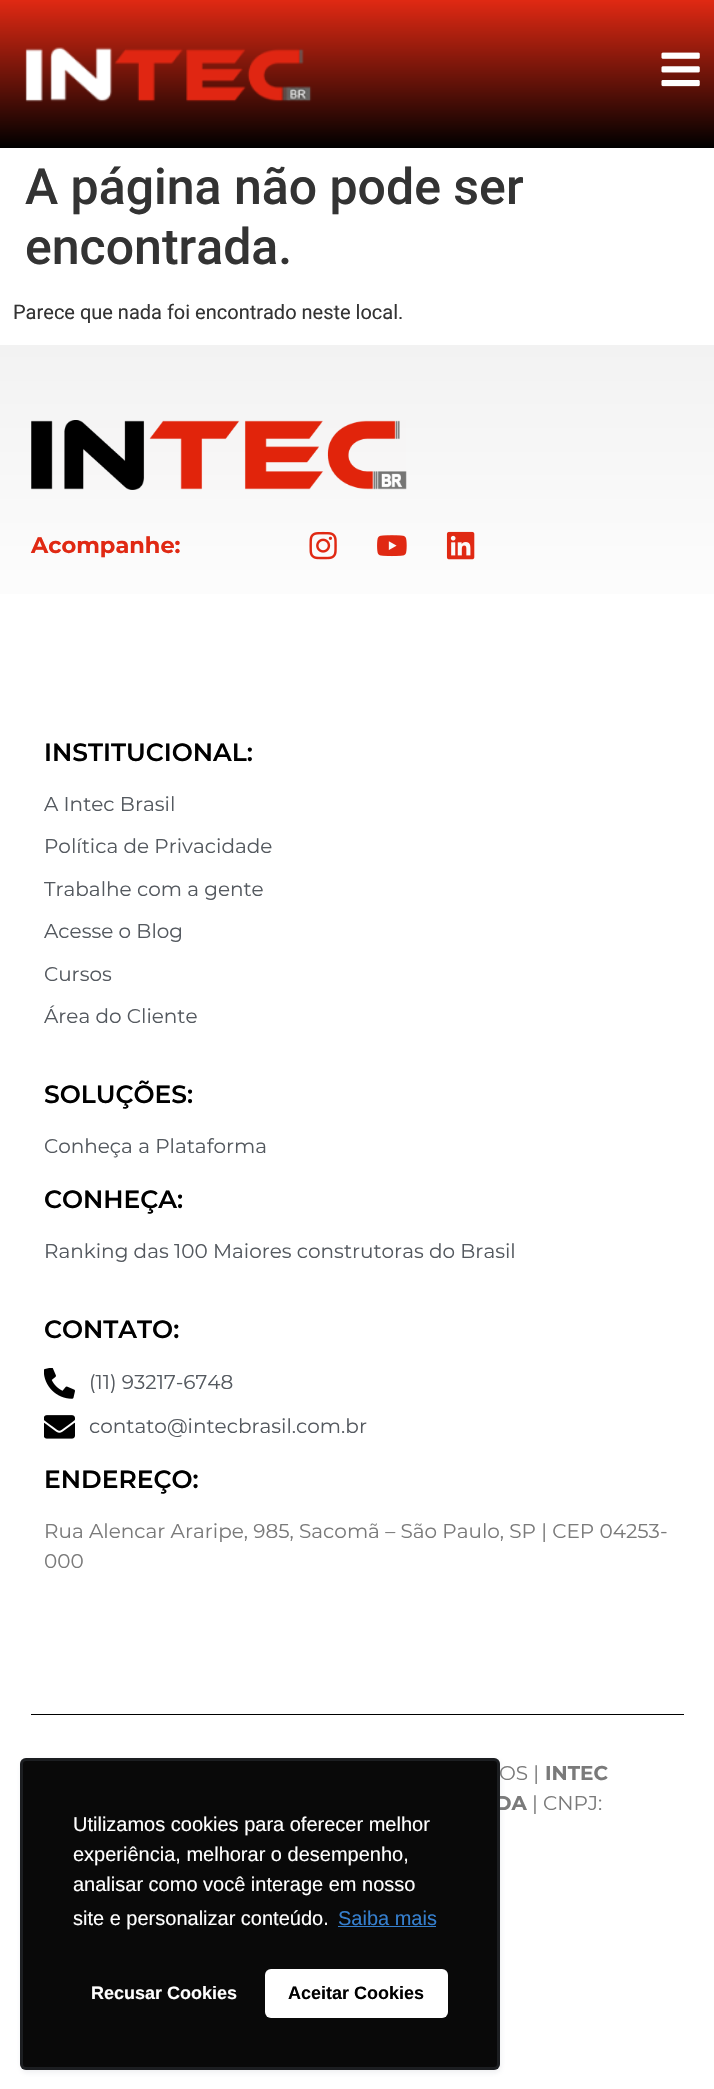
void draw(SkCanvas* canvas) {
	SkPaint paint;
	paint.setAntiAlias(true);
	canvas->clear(0xffffffff);
	{
		const SkColor colors[] = {0xffe02913, 0xff000000};
		const float stops[] = {0, 1};
		const SkPoint ends[] = {{358, 0}, {358, 148}};
		paint.setShader(SkGradientShader::MakeLinear(ends, colors, stops, 2, SkTileMode::kClamp));
		paint.setAlpha(255);
	}
	canvas->drawRect(SkRect::MakeXYWH(0, 0, 714, 148), paint);
	canvas->drawImageRect(SkImages::DeferredFromEncodedData(SkData::MakeFromFileName("img1.png")), SkRect::MakeXYWH(25, 47, 287, 55), SkSamplingOptions());
	canvas->drawImageRect(SkImages::DeferredFromEncodedData(SkData::MakeFromFileName("img2.png")), SkRect::MakeXYWH(661, 52, 39, 35), SkSamplingOptions());
	SkFont f1(fontMgr->matchFamilyStyle("Roboto", SkFontStyle(500, SkFontStyle::kNormal_Width, SkFontStyle::kUpright_Slant)), 50);
	f1.setSubpixel(true);
	paint.setShader(nullptr);
	paint.setColor(0xff333333);
	canvas->drawString("A página não pode ser", 25, 204, f1, paint);
	canvas->drawString("encontrada.", 25, 264, f1, paint);
	SkFont f2(fontMgr->matchFamilyStyle("Roboto", SkFontStyle::Normal()), 20);
	f2.setSubpixel(true);
	canvas->drawString("Parece que nada foi encontrado neste local.", 13, 319, f2, paint);
	{
		const SkColor colors[] = {0xfff2f2f2, 0xffffffff};
		const float stops[] = {0, 1};
		const SkPoint ends[] = {{358, 345}, {358, 653}};
		paint.setShader(SkGradientShader::MakeLinear(ends, colors, stops, 2, SkTileMode::kClamp));
		paint.setAlpha(255);
	}
	canvas->drawRect(SkRect::MakeXYWH(0, 345, 714, 249), paint);
	canvas->drawImageRect(SkImages::DeferredFromEncodedData(SkData::MakeFromFileName("img3.png")), SkRect::MakeXYWH(31, 420, 376, 70), SkSamplingOptions());
	SkFont f3(fontMgr->matchFamilyStyle("Montserrat", SkFontStyle::Bold()), 22.5);
	f3.setSubpixel(true);
	paint.setShader(nullptr);
	paint.setColor(0xffe02913);
	canvas->drawString("Acompanhe:", 31, 553, f3, paint);
	canvas->drawImageRect(SkImages::DeferredFromEncodedData(SkData::MakeFromFileName("img4.png")), SkRect::MakeXYWH(309, 531, 28, 29), SkSamplingOptions());
	canvas->drawImageRect(SkImages::DeferredFromEncodedData(SkData::MakeFromFileName("img5.png")), SkRect::MakeXYWH(377, 535, 30, 22), SkSamplingOptions());
	canvas->drawImageRect(SkImages::DeferredFromEncodedData(SkData::MakeFromFileName("img6.png")), SkRect::MakeXYWH(446, 531, 29, 29), SkSamplingOptions());
	SkFont f4(fontMgr->matchFamilyStyle("Montserrat", SkFontStyle(600, SkFontStyle::kNormal_Width, SkFontStyle::kUpright_Slant)), 25);
	f4.setSubpixel(true);
	paint.setColor(0xff000000);
	canvas->drawString("INSTITUCIONAL:", 44, 761, f4, paint);
	SkFont f5(fontMgr->matchFamilyStyle("Montserrat", SkFontStyle::Normal()), 20);
	f5.setSubpixel(true);
	paint.setColor(0xff54595f);
	canvas->drawString("A Intec Brasil", 44, 811, f5, paint);
	canvas->drawString("Política de Privacidade", 44, 853, f5, paint);
	canvas->drawString("Trabalhe com a gente", 44, 896, f5, paint);
	canvas->drawString("Acesse o Blog", 44, 938, f5, paint);
	canvas->drawString("Cursos", 44, 981, f5, paint);
	canvas->drawString("Área do Cliente", 44, 1023, f5, paint);
	paint.setColor(0xff000000);
	canvas->drawString("SOLUÇÕES:", 44, 1103, f4, paint);
	paint.setColor(0xff54595f);
	canvas->drawString("Conheça a Plataforma", 44, 1153, f5, paint);
	paint.setColor(0xff000000);
	canvas->drawString("CONHEÇA:", 44, 1208, f4, paint);
	paint.setColor(0xff54595f);
	canvas->drawString("Ranking das 100 Maiores construtoras do Brasil", 44, 1258, f5, paint);
	paint.setColor(0xff000000);
	canvas->drawString("CONTATO:", 44, 1338, f4, paint);
	canvas->drawImageRect(SkImages::DeferredFromEncodedData(SkData::MakeFromFileName("img7.png")), SkRect::MakeXYWH(44, 1368, 31, 31), SkSamplingOptions());
	paint.setColor(0xff54595f);
	canvas->drawString("(11) 93217-6748", 89, 1389, f5, paint);
	canvas->drawImageRect(SkImages::DeferredFromEncodedData(SkData::MakeFromFileName("img8.png")), SkRect::MakeXYWH(44, 1415, 31, 24), SkSamplingOptions());
	canvas->drawString("contato@intecbrasil.com.br", 89, 1433, f5, paint);
	paint.setColor(0xff000000);
	canvas->drawString("ENDEREÇO:", 44, 1488, f4, paint);
	paint.setColor(0xff7a7a7a);
	canvas->drawString("Rua Alencar Araripe, 985, Sacomã – São Paulo, SP | CEP 04253-", 44, 1538, f5, paint);
	canvas->drawString("000", 44, 1568, f5, paint);
	paint.setColor(0xff000000);
	canvas->drawRect(SkRect::MakeXYWH(31, 1714, 653, 1), paint);
	paint.setColor(0xff7a7a7a);
	canvas->drawString("OS |", 499, 1780, f5, paint);
	SkFont f6(fontMgr->matchFamilyStyle("Montserrat", SkFontStyle::Bold()), 20);
	f6.setSubpixel(true);
	canvas->drawString("INTEC", 545, 1780, f6, paint);
	canvas->drawString("DA", 495, 1810, f6, paint);
	canvas->drawString("| CNPJ:", 532, 1810, f5, paint);
	paint.setColor(0x1a636e7c);
	paint.setMaskFilter(SkMaskFilter::MakeBlur(kNormal_SkBlurStyle, 2.5));
	canvas->drawRoundRect(SkRect::MakeXYWH(21, 1760, 480, 313), 6, 6, paint);
	paint.setMaskFilter(nullptr);
	paint.setColor(0xff090909);
	canvas->drawRoundRect(SkRect::MakeXYWH(20, 1758, 480, 312), 6, 6, paint);
	paint.setStroke(true);
	paint.setStrokeWidth(3);
	paint.setColor(0x33636e7c);
	canvas->drawRoundRect(SkRect::MakeXYWH(21.5, 1759.5, 477, 309), 4.5, 4.5, paint);
	SkFont f7(fontMgr->matchFamilyStyle("Liberation Sans", SkFontStyle::Normal()), 20);
	f7.setSubpixel(true);
	paint.setStroke(false);
	paint.setColor(0xffffffff);
	canvas->drawString("Utilizamos cookies para oferecer melhor", 73, 1831, f7, paint);
	canvas->drawString("experiência, melhorar o desempenho,", 73, 1861, f7, paint);
	canvas->drawString("analisar como você interage em nosso", 73, 1891, f7, paint);
	canvas->drawString("site e personalizar conteúdo.", 73, 1925, f7, paint);
	paint.setColor(0xff357fce);
	canvas->drawString("Saiba mais", 338, 1925, f7, paint);
	canvas->drawRect(SkRect::MakeXYWH(338, 1926, 98, 1), paint);
	SkFont f8(fontMgr->matchFamilyStyle("Liberation Sans", SkFontStyle::Bold()), 18);
	f8.setSubpixel(true);
	paint.setColor(0xffffffff);
	canvas->drawString("Recusar Cookies", 91, 1999, f8, paint);
	canvas->drawRoundRect(SkRect::MakeXYWH(265, 1969, 183, 49), 6, 6, paint);
	paint.setColor(0xff000000);
	canvas->drawString("Aceitar Cookies", 288, 1999, f8, paint);
}
